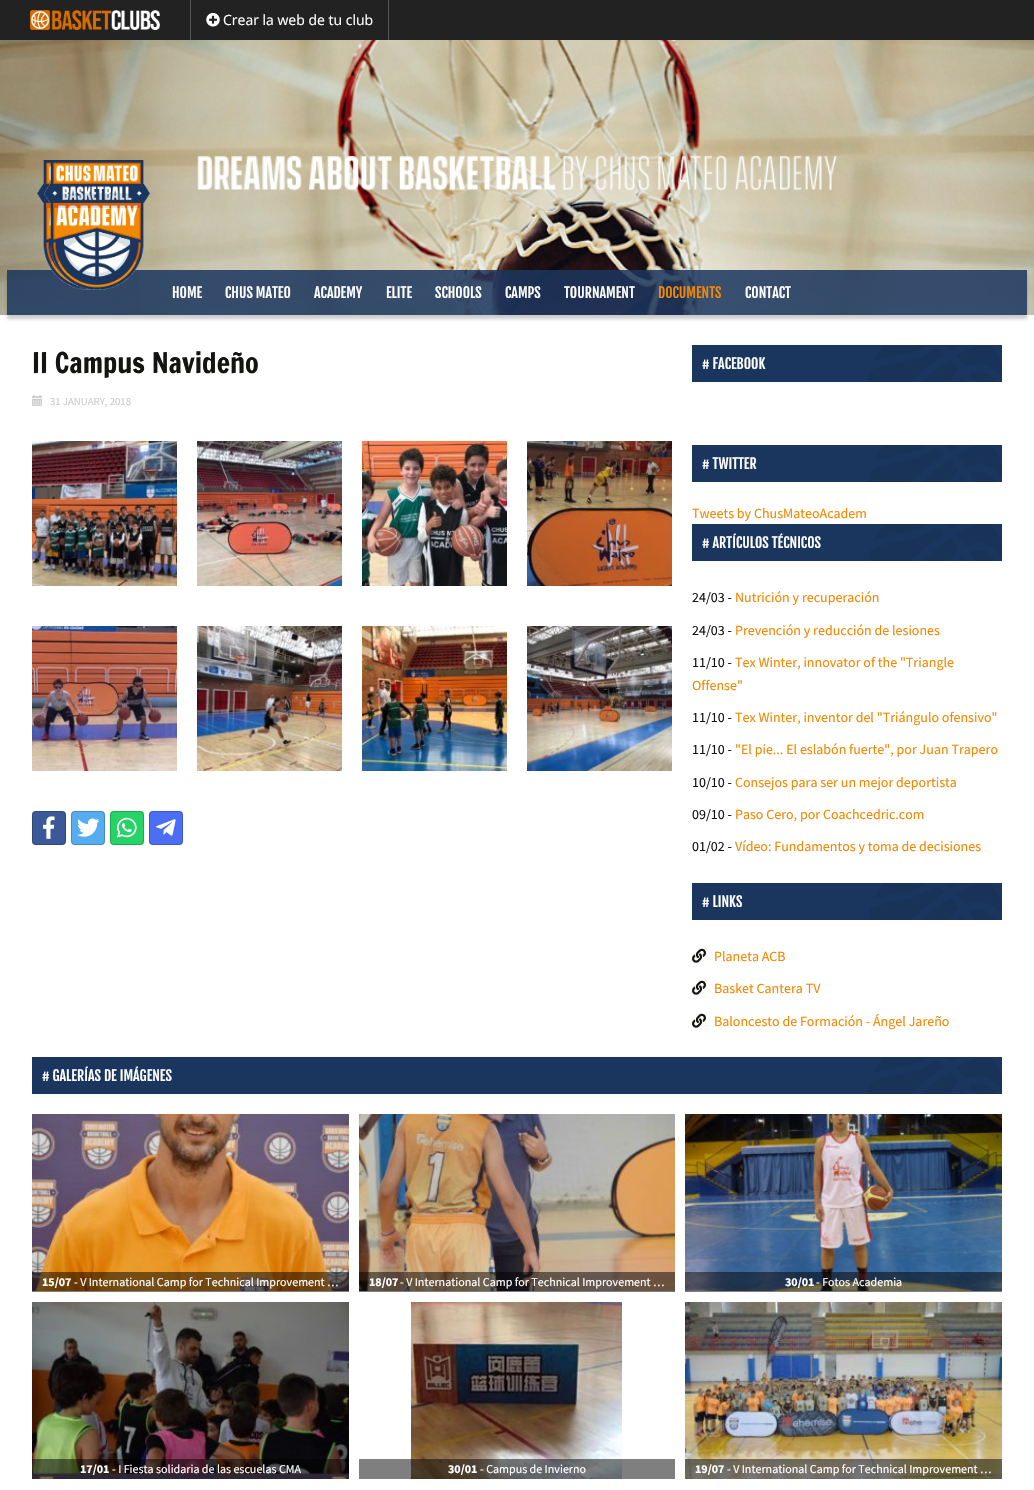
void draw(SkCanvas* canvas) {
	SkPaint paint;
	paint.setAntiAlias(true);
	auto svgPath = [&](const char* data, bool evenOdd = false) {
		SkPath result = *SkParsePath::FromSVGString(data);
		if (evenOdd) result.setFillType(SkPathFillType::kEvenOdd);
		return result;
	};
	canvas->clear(0xff222222);
	canvas->drawImageRect(SkImages::DeferredFromEncodedData(SkData::MakeFromFileName("img1.png")), SkRect::MakeXYWH(30, 10, 130, 20), SkSamplingOptions());
	paint.setColor(0xff555555);
	canvas->drawRect(SkRect::MakeXYWH(388, 0, 1, 40), paint);
	canvas->drawRect(SkRect::MakeXYWH(190, 0, 1, 40), paint);
	canvas->drawImageRect(SkImages::DeferredFromEncodedData(SkData::MakeFromFileName("img2.png")), SkRect::MakeXYWH(206, 13, 14, 14), SkSamplingOptions());
	SkFont f1(fontMgr->matchFamilyStyle("Open Sans", SkFontStyle::Normal()), 14);
	f1.setSubpixel(true);
	paint.setColor(0xffffffff);
	canvas->drawString("Crear la web de tu club", 223, 25, f1, paint);
	canvas->drawRect(SkRect::MakeXYWH(0, 315, 1034, 1175), paint);
	canvas->drawImageRect(SkImages::DeferredFromEncodedData(SkData::MakeFromFileName("img3.png")), SkRect::MakeXYWH(0, 40, 1034, 275), SkSamplingOptions());
	canvas->save();
	canvas->clipPath(svgPath("M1 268H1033V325H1ZM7 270H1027V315H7Z", true), true);
	paint.setColor(0x33000000);
	paint.setMaskFilter(SkMaskFilter::MakeBlur(kNormal_SkBlurStyle, 1.5));
	canvas->drawRect(SkRect::MakeXYWH(7, 274, 1020, 45), paint);
	paint.setMaskFilter(nullptr);
	canvas->restore();
	paint.setColor(0xd91a355e);
	canvas->drawRect(SkRect::MakeXYWH(7, 270, 1020, 45), paint);
	canvas->drawImageRect(SkImages::DeferredFromEncodedData(SkData::MakeFromFileName("img4.png")), SkRect::MakeXYWH(37, 160, 65, 130), SkSamplingOptions());
	canvas->drawImageRect(SkImages::DeferredFromEncodedData(SkData::MakeFromFileName("img5.png")), SkRect::MakeXYWH(44, 160, 106, 130), SkSamplingOptions());
	SkFont f2(fontMgr->matchFamilyStyle("Fjalla One", SkFontStyle::Normal()), 14);
	f2.setSubpixel(true);
	paint.setColor(0xffffffff);
	canvas->drawString("HOME", 172, 298, f2, paint);
	canvas->drawString("CHUS MATEO", 225, 298, f2, paint);
	canvas->drawString("ACADEMY", 314, 298, f2, paint);
	canvas->drawString("ELITE", 386, 298, f2, paint);
	canvas->drawString("SCHOOLS", 435, 298, f2, paint);
	canvas->drawString("CAMPS", 505, 298, f2, paint);
	canvas->drawString("TOURNAMENT", 564, 298, f2, paint);
	paint.setColor(0xfff18903);
	canvas->drawString("DOCUMENTS", 658, 298, f2, paint);
	paint.setColor(0xffffffff);
	canvas->drawString("CONTACT", 745, 298, f2, paint);
	SkFont f3(fontMgr->matchFamilyStyle("Francois One", SkFontStyle::Normal()), 28);
	f3.setSubpixel(true);
	paint.setColor(0xff141412);
	canvas->drawString("II Campus Navideño", 32, 373, f3, paint);
	canvas->drawImageRect(SkImages::DeferredFromEncodedData(SkData::MakeFromFileName("img6.png")), SkRect::MakeXYWH(32, 395, 10, 11), SkSamplingOptions());
	SkFont f4(fontMgr->matchFamilyStyle("Source Sans Pro", SkFontStyle::Normal()), 10.75);
	f4.setSubpixel(true);
	paint.setColor(0xffcccccc);
	canvas->drawString("31 JANUARY, 2018", 50, 405, f4, paint);
	canvas->drawImageRect(SkImages::DeferredFromEncodedData(SkData::MakeFromFileName("img7.png")), SkRect::MakeXYWH(32, 441, 145, 145), SkSamplingOptions());
	canvas->drawImageRect(SkImages::DeferredFromEncodedData(SkData::MakeFromFileName("img8.png")), SkRect::MakeXYWH(197, 441, 145, 145), SkSamplingOptions());
	canvas->drawImageRect(SkImages::DeferredFromEncodedData(SkData::MakeFromFileName("img9.png")), SkRect::MakeXYWH(362, 441, 145, 145), SkSamplingOptions());
	canvas->drawImageRect(SkImages::DeferredFromEncodedData(SkData::MakeFromFileName("img10.png")), SkRect::MakeXYWH(527, 441, 145, 145), SkSamplingOptions());
	canvas->drawImageRect(SkImages::DeferredFromEncodedData(SkData::MakeFromFileName("img11.png")), SkRect::MakeXYWH(32, 626, 145, 145), SkSamplingOptions());
	canvas->drawImageRect(SkImages::DeferredFromEncodedData(SkData::MakeFromFileName("img12.png")), SkRect::MakeXYWH(197, 626, 145, 145), SkSamplingOptions());
	canvas->drawImageRect(SkImages::DeferredFromEncodedData(SkData::MakeFromFileName("img13.png")), SkRect::MakeXYWH(362, 626, 145, 145), SkSamplingOptions());
	canvas->drawImageRect(SkImages::DeferredFromEncodedData(SkData::MakeFromFileName("img14.png")), SkRect::MakeXYWH(527, 626, 145, 145), SkSamplingOptions());
	paint.setColor(0xff3b5998);
	canvas->drawRoundRect(SkRect::MakeXYWH(32, 811, 34, 34), 4, 4, paint);
	paint.setStroke(true);
	paint.setStrokeWidth(1);
	paint.setColor(0x33000000);
	canvas->drawRoundRect(SkRect::MakeXYWH(32.5, 811.5, 33, 33), 3.5, 3.5, paint);
	canvas->drawImageRect(SkImages::DeferredFromEncodedData(SkData::MakeFromFileName("img15.png")), SkRect::MakeXYWH(43, 816, 12, 23), SkSamplingOptions());
	paint.setStroke(false);
	paint.setColor(0xff55acee);
	canvas->drawRoundRect(SkRect::MakeXYWH(71, 811, 34, 34), 4, 4, paint);
	paint.setStroke(true);
	paint.setColor(0x33000000);
	canvas->drawRoundRect(SkRect::MakeXYWH(71.5, 811.5, 33, 33), 3.5, 3.5, paint);
	canvas->drawImageRect(SkImages::DeferredFromEncodedData(SkData::MakeFromFileName("img16.png")), SkRect::MakeXYWH(77, 818, 23, 19), SkSamplingOptions());
	paint.setStroke(false);
	paint.setColor(0xff25d366);
	canvas->drawRoundRect(SkRect::MakeXYWH(110, 811, 34, 34), 4, 4, paint);
	paint.setStroke(true);
	paint.setColor(0x33000000);
	canvas->drawRoundRect(SkRect::MakeXYWH(110.5, 811.5, 33, 33), 3.5, 3.5, paint);
	canvas->drawImageRect(SkImages::DeferredFromEncodedData(SkData::MakeFromFileName("img17.png")), SkRect::MakeXYWH(117, 817, 20, 21), SkSamplingOptions());
	paint.setStroke(false);
	paint.setColor(0xff4c6ef5);
	canvas->drawRoundRect(SkRect::MakeXYWH(149, 811, 34, 34), 4, 4, paint);
	paint.setStroke(true);
	paint.setColor(0x33000000);
	canvas->drawRoundRect(SkRect::MakeXYWH(149.5, 811.5, 33, 33), 3.5, 3.5, paint);
	canvas->drawImageRect(SkImages::DeferredFromEncodedData(SkData::MakeFromFileName("img18.png")), SkRect::MakeXYWH(156, 819, 20, 17), SkSamplingOptions());
	paint.setStroke(false);
	paint.setColor(0xff1a355e);
	canvas->drawRect(SkRect::MakeXYWH(692, 345, 310, 37), paint);
	canvas->drawImageRect(SkImages::DeferredFromEncodedData(SkData::MakeFromFileName("img19.png")), SkRect::MakeXYWH(868, 345, 134, 37), SkSamplingOptions());
	paint.setColor(0xffffffff);
	canvas->drawString("# FACEBOOK", 702, 369, f2, paint);
	paint.setColor(0xff1a355e);
	canvas->drawRect(SkRect::MakeXYWH(692, 445, 310, 37), paint);
	canvas->drawImageRect(SkImages::DeferredFromEncodedData(SkData::MakeFromFileName("img19.png")), SkRect::MakeXYWH(868, 445, 134, 37), SkSamplingOptions());
	paint.setColor(0xffffffff);
	canvas->drawString("# TWITTER", 702, 469, f2, paint);
	SkFont f5(fontMgr->matchFamilyStyle("Source Sans Pro", SkFontStyle::Normal()), 14);
	f5.setSubpixel(true);
	paint.setColor(0xfff18903);
	canvas->drawString("Tweets by ChusMateoAcadem", 692, 518, f5, paint);
	paint.setColor(0xff1a355e);
	canvas->drawRect(SkRect::MakeXYWH(692, 524, 310, 37), paint);
	canvas->drawImageRect(SkImages::DeferredFromEncodedData(SkData::MakeFromFileName("img19.png")), SkRect::MakeXYWH(868, 524, 134, 37), SkSamplingOptions());
	paint.setColor(0xffffffff);
	canvas->drawString("# ARTÍCULOS TÉCNICOS", 702, 548, f2, paint);
	paint.setColor(0xff141412);
	canvas->drawString("24/03 -", 692, 602, f5, paint);
	paint.setColor(0xfff18903);
	canvas->drawString("Nutrición y recuperación", 735, 602, f5, paint);
	paint.setColor(0xff141412);
	canvas->drawString("24/03 -", 692, 635, f5, paint);
	paint.setColor(0xfff18903);
	canvas->drawString("Prevención y reducción de lesiones", 735, 635, f5, paint);
	paint.setColor(0xff141412);
	canvas->drawString("11/10 -", 692, 667, f5, paint);
	paint.setColor(0xfff18903);
	canvas->drawString("Tex Winter, innovator of the \"Triangle", 735, 667, f5, paint);
	canvas->drawString("Offense\"", 692, 690, f5, paint);
	paint.setColor(0xff141412);
	canvas->drawString("11/10 -", 692, 722, f5, paint);
	paint.setColor(0xfff18903);
	canvas->drawString("Tex Winter, inventor del \"Triángulo ofensivo\"", 735, 722, f5, paint);
	paint.setColor(0xff141412);
	canvas->drawString("11/10 -", 692, 754, f5, paint);
	paint.setColor(0xfff18903);
	canvas->drawString("\"El pie... El eslabón fuerte\", por Juan Trapero", 735, 754, f5, paint);
	paint.setColor(0xff141412);
	canvas->drawString("10/10 -", 692, 787, f5, paint);
	paint.setColor(0xfff18903);
	canvas->drawString("Consejos para ser un mejor deportista", 735, 787, f5, paint);
	paint.setColor(0xff141412);
	canvas->drawString("09/10 -", 692, 819, f5, paint);
	paint.setColor(0xfff18903);
	canvas->drawString("Paso Cero, por Coachcedric.com", 735, 819, f5, paint);
	paint.setColor(0xff141412);
	canvas->drawString("01/02 -", 692, 851, f5, paint);
	paint.setColor(0xfff18903);
	canvas->drawString("Vídeo: Fundamentos y toma de decisiones", 735, 851, f5, paint);
	paint.setColor(0xff1a355e);
	canvas->drawRect(SkRect::MakeXYWH(692, 883, 310, 37), paint);
	canvas->drawImageRect(SkImages::DeferredFromEncodedData(SkData::MakeFromFileName("img19.png")), SkRect::MakeXYWH(868, 883, 134, 37), SkSamplingOptions());
	paint.setColor(0xffffffff);
	canvas->drawString("# LINKS", 702, 907, f2, paint);
	canvas->drawImageRect(SkImages::DeferredFromEncodedData(SkData::MakeFromFileName("img20.png")), SkRect::MakeXYWH(692, 948, 14, 15), SkSamplingOptions());
	paint.setColor(0xfff18903);
	canvas->drawString("Planeta ACB", 714, 961, f5, paint);
	canvas->drawImageRect(SkImages::DeferredFromEncodedData(SkData::MakeFromFileName("img20.png")), SkRect::MakeXYWH(692, 980, 14, 15), SkSamplingOptions());
	canvas->drawString("Basket Cantera TV", 714, 993, f5, paint);
	canvas->drawImageRect(SkImages::DeferredFromEncodedData(SkData::MakeFromFileName("img20.png")), SkRect::MakeXYWH(692, 1013, 14, 15), SkSamplingOptions());
	canvas->drawString("Baloncesto de Formación - Ángel Jareño", 714, 1026, f5, paint);
	paint.setColor(0xff1a355e);
	canvas->drawRect(SkRect::MakeXYWH(32, 1057, 970, 37), paint);
	canvas->drawImageRect(SkImages::DeferredFromEncodedData(SkData::MakeFromFileName("img19.png")), SkRect::MakeXYWH(868, 1057, 134, 37), SkSamplingOptions());
	paint.setColor(0xffffffff);
	canvas->drawString("# GALERÍAS DE IMÁGENES", 42, 1081, f2, paint);
	canvas->drawImageRect(SkImages::DeferredFromEncodedData(SkData::MakeFromFileName("img21.png")), SkRect::MakeXYWH(32, 1114, 317, 177), SkSamplingOptions());
	paint.setColor(0x80000000);
	canvas->drawRect(SkRect::MakeXYWH(32, 1272, 317, 20), paint);
	SkFont f6(fontMgr->matchFamilyStyle("Source Sans Pro", SkFontStyle::Bold()), 12);
	f6.setSubpixel(true);
	paint.setColor(0xffffffff);
	canvas->drawString("15/07", 42, 1286, f6, paint);
	SkFont f7(fontMgr->matchFamilyStyle("Source Sans Pro", SkFontStyle::Normal()), 12);
	f7.setSubpixel(true);
	canvas->drawString("- V International Camp for Technical Improvement …", 74, 1286, f7, paint);
	canvas->drawImageRect(SkImages::DeferredFromEncodedData(SkData::MakeFromFileName("img22.png")), SkRect::MakeXYWH(359, 1114, 316, 177), SkSamplingOptions());
	paint.setColor(0x80000000);
	canvas->drawRect(SkRect::MakeXYWH(359, 1272, 316, 20), paint);
	paint.setColor(0xffffffff);
	canvas->drawString("18/07", 369, 1286, f6, paint);
	canvas->drawString("- V International Camp for Technical Improvement …", 400, 1286, f7, paint);
	canvas->drawImageRect(SkImages::DeferredFromEncodedData(SkData::MakeFromFileName("img23.png")), SkRect::MakeXYWH(685, 1114, 317, 177), SkSamplingOptions());
	paint.setColor(0x80000000);
	canvas->drawRect(SkRect::MakeXYWH(685, 1272, 317, 20), paint);
	paint.setColor(0xffffffff);
	canvas->drawString("30/01", 785, 1286, f6, paint);
	canvas->drawString("- Fotos Academia", 816, 1286, f7, paint);
	canvas->drawImageRect(SkImages::DeferredFromEncodedData(SkData::MakeFromFileName("img24.png")), SkRect::MakeXYWH(32, 1302, 317, 177), SkSamplingOptions());
	paint.setColor(0x80000000);
	canvas->drawRect(SkRect::MakeXYWH(32, 1459, 317, 20), paint);
	paint.setColor(0xffffffff);
	canvas->drawString("17/01", 80, 1473, f6, paint);
	canvas->drawString("- I Fiesta solidaria de las escuelas CMA", 112, 1473, f7, paint);
	canvas->drawImageRect(SkImages::DeferredFromEncodedData(SkData::MakeFromFileName("img25.png")), SkRect::MakeXYWH(411, 1302, 211, 177), SkSamplingOptions());
	paint.setColor(0x80000000);
	canvas->drawRect(SkRect::MakeXYWH(359, 1459, 316, 20), paint);
	paint.setColor(0xffffffff);
	canvas->drawString("30/01", 448, 1473, f6, paint);
	canvas->drawString("- Campus de Invierno", 480, 1473, f7, paint);
	canvas->drawImageRect(SkImages::DeferredFromEncodedData(SkData::MakeFromFileName("img26.png")), SkRect::MakeXYWH(685, 1302, 317, 177), SkSamplingOptions());
	paint.setColor(0x80000000);
	canvas->drawRect(SkRect::MakeXYWH(685, 1459, 317, 20), paint);
	paint.setColor(0xffffffff);
	canvas->drawString("19/07", 695, 1473, f6, paint);
	canvas->drawString("- V International Camp for Technical Improvement …", 727, 1473, f7, paint);
}
